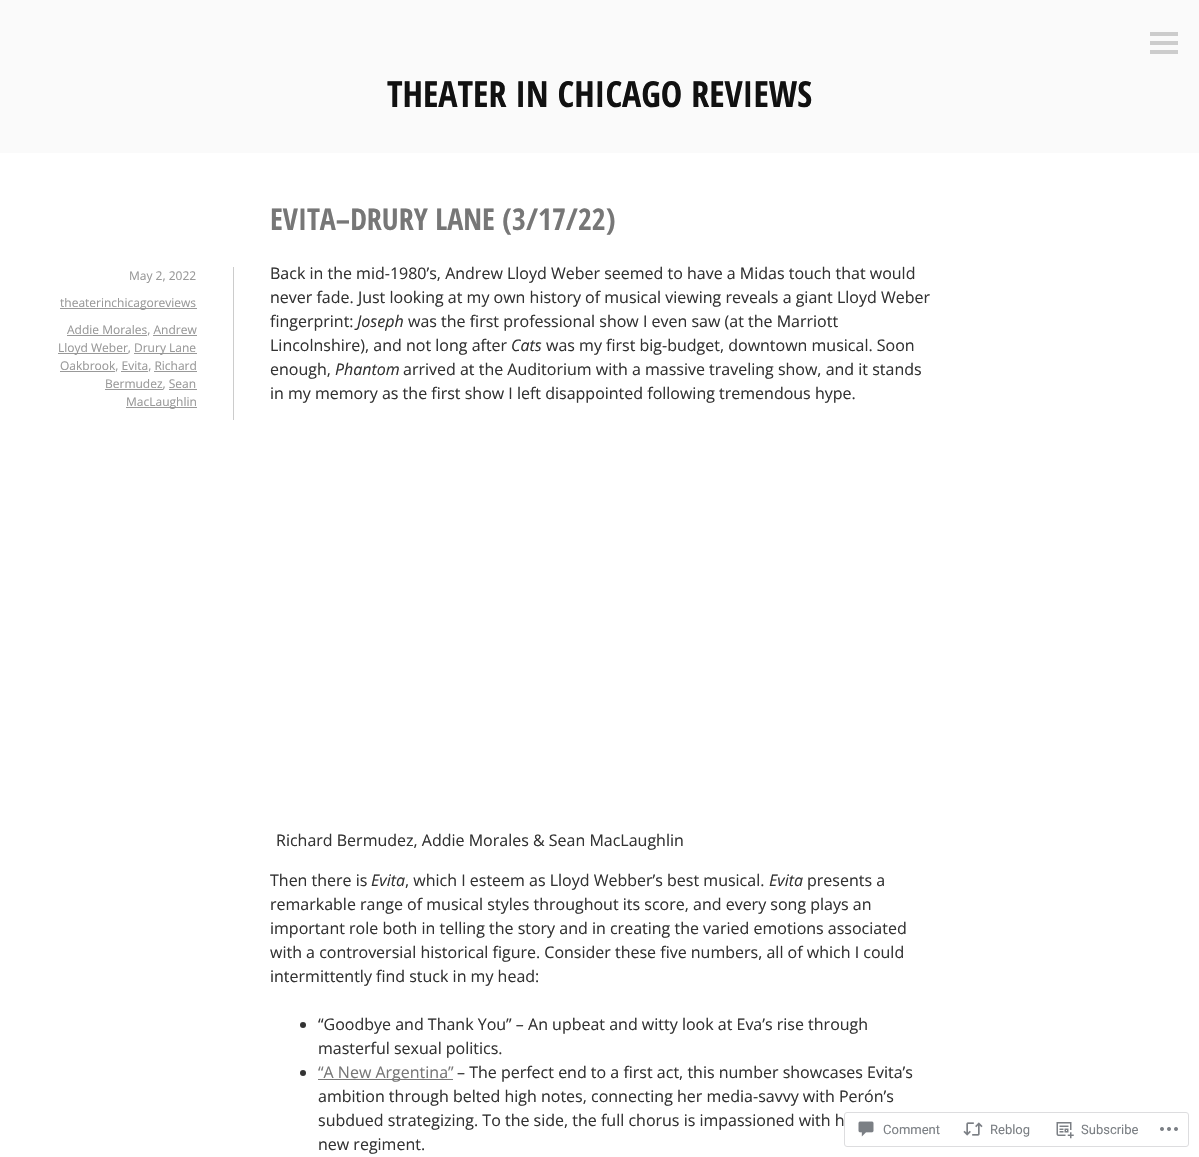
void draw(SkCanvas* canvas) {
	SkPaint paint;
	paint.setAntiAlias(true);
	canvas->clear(0xffffffff);
	paint.setColor(0xfffafafa);
	canvas->drawRect(SkRect::MakeXYWH(0, 0, 1199, 153), paint);
	paint.setColor(0xffcccccc);
	canvas->drawRect(SkRect::MakeXYWH(1150, 32, 28, 4), paint);
	canvas->drawRect(SkRect::MakeXYWH(1150, 41, 28, 4), paint);
	canvas->drawRect(SkRect::MakeXYWH(1150, 50, 28, 4), paint);
	SkFont f1(fontMgr->matchFamilyStyle("Open Sans Condensed", SkFontStyle::Bold()), 36);
	f1.setSubpixel(true);
	paint.setColor(0xff111111);
	canvas->drawString("THEATER IN CHICAGO REVIEWS", 387, 107, f1, paint);
	SkFont f2(fontMgr->matchFamilyStyle("Open Sans Condensed", SkFontStyle::Bold()), 30);
	f2.setSubpixel(true);
	paint.setColor(0xff777777);
	canvas->drawString("EVITA–DRURY LANE (3/17/22)", 270, 230, f2, paint);
	paint.setColor(0xffcccccc);
	canvas->drawRect(SkRect::MakeXYWH(233, 267, 1, 153), paint);
	SkFont f3(fontMgr->matchFamilyStyle("Open Sans", SkFontStyle::Normal()), 12);
	f3.setSubpixel(true);
	paint.setColor(0xff999999);
	canvas->drawString("May 2, 2022", 129, 280, f3, paint);
	canvas->drawRect(SkRect::MakeXYWH(60, 308, 137, 1), paint);
	canvas->drawString("theaterinchicagoreviews", 60, 307, f3, paint);
	canvas->drawRect(SkRect::MakeXYWH(67, 335, 80, 1), paint);
	canvas->drawString("Addie Morales, Andrew", 67, 334, f3, paint);
	canvas->drawRect(SkRect::MakeXYWH(58, 353, 70, 1), paint);
	canvas->drawString("Lloyd Weber,", 58, 352, f3, paint);
	canvas->drawRect(SkRect::MakeXYWH(153, 335, 44, 1), paint);
	canvas->drawRect(SkRect::MakeXYWH(134, 353, 63, 1), paint);
	canvas->drawString("Drury Lane", 134, 352, f3, paint);
	canvas->drawRect(SkRect::MakeXYWH(60, 371, 55, 1), paint);
	canvas->drawString("Oakbrook, Evita, Richard", 60, 370, f3, paint);
	canvas->drawRect(SkRect::MakeXYWH(121, 371, 27, 1), paint);
	canvas->drawRect(SkRect::MakeXYWH(105, 389, 58, 1), paint);
	canvas->drawString("Bermudez, Sean", 105, 388, f3, paint);
	canvas->drawRect(SkRect::MakeXYWH(154, 371, 43, 1), paint);
	canvas->drawRect(SkRect::MakeXYWH(126, 407, 71, 1), paint);
	canvas->drawString("MacLaughlin", 126, 406, f3, paint);
	canvas->drawRect(SkRect::MakeXYWH(169, 389, 28, 1), paint);
	SkFont f4(fontMgr->matchFamilyStyle("Open Sans", SkFontStyle::Normal()), 16);
	f4.setSubpixel(true);
	paint.setColor(0xff333333);
	canvas->drawString("Back in the mid-1980’s, Andrew Lloyd Weber seemed to have a Midas touch that would", 270, 279, f4, paint);
	canvas->drawString("never fade. Just looking at my own history of musical viewing reveals a giant Lloyd Weber", 270, 303, f4, paint);
	canvas->drawString("fingerprint:", 270, 327, f4, paint);
	SkFont f5(fontMgr->matchFamilyStyle("Open Sans", SkFontStyle::Italic()), 16);
	f5.setSubpixel(true);
	canvas->drawString("Joseph", 357, 327, f5, paint);
	canvas->drawString("was the first professional show I even saw (at the Marriott", 408, 327, f4, paint);
	canvas->drawString("Lincolnshire), and not long after", 270, 351, f4, paint);
	canvas->drawString("Cats", 511, 351, f5, paint);
	canvas->drawString("was my first big-budget, downtown musical. Soon", 546, 351, f4, paint);
	canvas->drawString("enough,", 270, 375, f4, paint);
	canvas->drawString("Phantom", 335, 375, f5, paint);
	canvas->drawString("arrived at the Auditorium with a massive traveling show, and it stands", 403, 375, f4, paint);
	canvas->drawString("in my memory as the first show I left disappointed following tremendous hype.", 270, 399, f4, paint);
	canvas->drawString("Richard Bermudez, Addie Morales & Sean MacLaughlin", 276, 846, f4, paint);
	canvas->drawString("Then there is", 270, 886, f4, paint);
	canvas->drawString("Evita", 371, 886, f5, paint);
	canvas->drawString(", which I esteem as Lloyd Webber’s best musical.", 405, 886, f4, paint);
	canvas->drawString("Evita", 769, 886, f5, paint);
	canvas->drawString("presents a", 807, 886, f4, paint);
	canvas->drawString("remarkable range of musical styles throughout its score, and every song plays an", 270, 910, f4, paint);
	canvas->drawString("important role both in telling the story and in creating the varied emotions associated", 270, 934, f4, paint);
	canvas->drawString("with a controversial historical figure. Consider these five numbers, all of which I could", 270, 958, f4, paint);
	canvas->drawString("intermittently find stuck in my head:", 270, 982, f4, paint);
	canvas->drawCircle(303, 1025, 3, paint);
	canvas->drawString("“Goodbye and Thank You” – An upbeat and witty look at Eva’s rise through", 318, 1030, f4, paint);
	canvas->drawString("masterful sexual politics.", 318, 1054, f4, paint);
	canvas->drawCircle(303, 1073, 3, paint);
	paint.setColor(0xff777777);
	canvas->drawRect(SkRect::MakeXYWH(318, 1079, 135, 1), paint);
	canvas->drawString("“A New Argentina”", 318, 1078, f4, paint);
	paint.setColor(0xff333333);
	canvas->drawString("– The perfect end to a first act, this number showcases Evita’s", 457, 1078, f4, paint);
	canvas->drawString("ambition through belted high notes, connecting her media-savvy with Perón’s", 318, 1102, f4, paint);
	canvas->drawString("subdued strategizing. To the side, the full chorus is impassioned with h", 318, 1126, f4, paint);
	canvas->drawString("new regiment.", 318, 1150, f4, paint);
	paint.setStroke(true);
	paint.setStrokeWidth(1);
	paint.setColor(0xffdddddf);
	canvas->drawRoundRect(SkRect::MakeXYWH(844.5, 1112.5, 344, 34), 2.5, 2.5, paint);
	canvas->drawImageRect(SkImages::DeferredFromEncodedData(SkData::MakeFromFileName("img1.png")), SkRect::MakeXYWH(858, 1121, 16, 16), SkSamplingOptions());
	SkFont f6(fontMgr->matchFamilyStyle("Roboto", SkFontStyle::Normal()), 13);
	f6.setSubpixel(true);
	paint.setStroke(false);
	paint.setColor(0xff7b7f84);
	canvas->drawString("Comment", 883, 1134, f6, paint);
	canvas->drawImageRect(SkImages::DeferredFromEncodedData(SkData::MakeFromFileName("img2.png")), SkRect::MakeXYWH(963, 1122, 20, 14), SkSamplingOptions());
	canvas->drawString("Reblog", 990, 1134, f6, paint);
	canvas->drawImageRect(SkImages::DeferredFromEncodedData(SkData::MakeFromFileName("img3.png")), SkRect::MakeXYWH(1056, 1122, 18, 17), SkSamplingOptions());
	canvas->drawString("Subscribe", 1081, 1134, f6, paint);
	canvas->drawImageRect(SkImages::DeferredFromEncodedData(SkData::MakeFromFileName("img4.png")), SkRect::MakeXYWH(1160, 1127, 18, 4), SkSamplingOptions());
}
